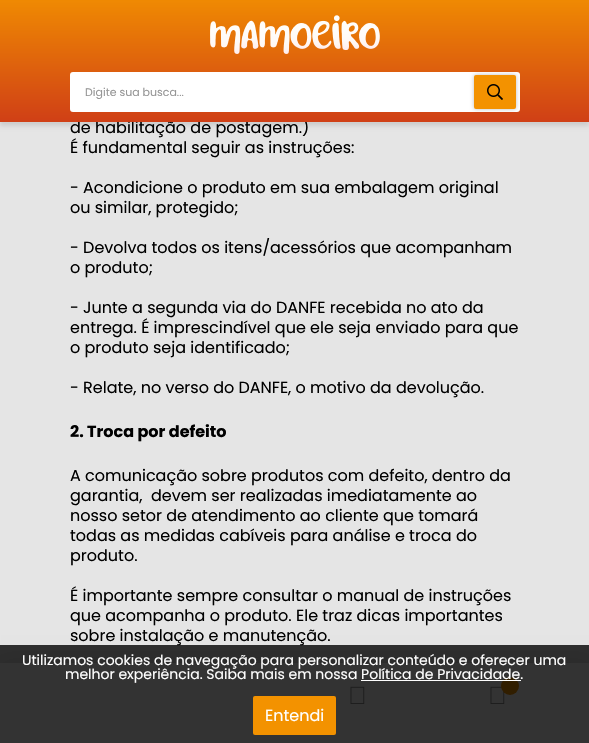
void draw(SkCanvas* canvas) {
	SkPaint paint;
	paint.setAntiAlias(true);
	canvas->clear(0xffe5e5e5);
	paint.setColor(0x1a000000);
	paint.setMaskFilter(SkMaskFilter::MakeBlur(kNormal_SkBlurStyle, 2));
	canvas->drawRect(SkRect::MakeXYWH(0, 4, 589, 122), paint);
	paint.setMaskFilter(nullptr);
	SkFont f1(fontMgr->matchFamilyStyle("Poppins", SkFontStyle::Normal()), 16);
	f1.setSubpixel(true);
	paint.setColor(0xff000000);
	canvas->drawString("de habilitação de postagem.)", 70, 133, f1, paint);
	{
		const SkColor colors[] = {0xfff39200, 0xffbe1621};
		const float stops[] = {0, 1};
		const SkPoint ends[] = {{295, -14}, {295, 190}};
		paint.setShader(SkGradientShader::MakeLinear(ends, colors, stops, 2, SkTileMode::kClamp));
		paint.setAlpha(255);
	}
	canvas->drawRect(SkRect::MakeXYWH(0, 0, 589, 122), paint);
	canvas->drawImageRect(SkImages::DeferredFromEncodedData(SkData::MakeFromFileName("img1.png")), SkRect::MakeXYWH(210, 15, 170, 39), SkSamplingOptions());
	paint.setShader(nullptr);
	paint.setColor(0xffffffff);
	canvas->drawRoundRect(SkRect::MakeXYWH(70, 72, 450, 40), 3, 3, paint);
	SkFont f2(fontMgr->matchFamilyStyle("Poppins", SkFontStyle::Normal()), 11);
	f2.setSubpixel(true);
	paint.setColor(0xff959595);
	canvas->drawString("Digite sua busca...", 85, 96, f2, paint);
	paint.setColor(0x40000000);
	paint.setMaskFilter(SkMaskFilter::MakeBlur(kNormal_SkBlurStyle, 2));
	canvas->drawRoundRect(SkRect::MakeXYWH(474, 75, 42, 34), 2, 2, paint);
	paint.setMaskFilter(nullptr);
	paint.setColor(0xfff39200);
	canvas->drawRoundRect(SkRect::MakeXYWH(474, 75, 42, 34), 2, 2, paint);
	canvas->drawImageRect(SkImages::DeferredFromEncodedData(SkData::MakeFromFileName("img2.png")), SkRect::MakeXYWH(487, 84, 16, 16), SkSamplingOptions());
	paint.setColor(0x26000000);
	paint.setMaskFilter(SkMaskFilter::MakeBlur(kNormal_SkBlurStyle, 10));
	canvas->drawRect(SkRect::MakeXYWH(1, 665, 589, 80), paint);
	paint.setMaskFilter(nullptr);
	paint.setColor(0xffffffff);
	canvas->drawRect(SkRect::MakeXYWH(0, 663, 589, 80), paint);
	canvas->drawImageRect(SkImages::DeferredFromEncodedData(SkData::MakeFromFileName("img3.png")), SkRect::MakeXYWH(350, 686, 15, 18), SkSamplingOptions());
	canvas->drawImageRect(SkImages::DeferredFromEncodedData(SkData::MakeFromFileName("img3.png")), SkRect::MakeXYWH(490, 686, 15, 18), SkSamplingOptions());
	paint.setColor(0xfff39200);
	canvas->drawCircle(510, 686, 9, paint);
	paint.setColor(0xff000000);
	canvas->drawString("É fundamental seguir as instruções:", 70, 153, f1, paint);
	canvas->drawString("- Acondicione o produto em sua embalagem original", 70, 193, f1, paint);
	canvas->drawString("ou similar, protegido;", 70, 213, f1, paint);
	canvas->drawString("- Devolva todos os itens/acessórios que acompanham", 70, 253, f1, paint);
	canvas->drawString("o produto;", 70, 273, f1, paint);
	canvas->drawString("- Junte a segunda via do DANFE recebida no ato da", 70, 313, f1, paint);
	canvas->drawString("entrega. É imprescindível que ele seja enviado para que", 70, 333, f1, paint);
	canvas->drawString("o produto seja identificado;", 70, 353, f1, paint);
	canvas->drawString("- Relate, no verso do DANFE, o motivo da devolução.", 70, 393, f1, paint);
	SkFont f3(fontMgr->matchFamilyStyle("Poppins", SkFontStyle::Bold()), 16);
	f3.setSubpixel(true);
	canvas->drawString("2. Troca por defeito", 70, 437, f3, paint);
	canvas->drawString("A comunicação sobre produtos com defeito, dentro da", 70, 481, f1, paint);
	canvas->drawString("garantia,  devem ser realizadas imediatamente ao", 70, 501, f1, paint);
	canvas->drawString("nosso setor de atendimento ao cliente que tomará", 70, 521, f1, paint);
	canvas->drawString("todas as medidas cabíveis para análise e troca do", 70, 541, f1, paint);
	canvas->drawString("produto.", 70, 561, f1, paint);
	canvas->drawString("É importante sempre consultar o manual de instruções", 70, 601, f1, paint);
	canvas->drawString("que acompanha o produto. Ele traz dicas importantes", 70, 621, f1, paint);
	canvas->drawString("sobre instalação e manutenção.", 70, 641, f1, paint);
	paint.setColor(0xcc000000);
	canvas->drawRect(SkRect::MakeXYWH(0, 645, 589, 98), paint);
	SkFont f4(fontMgr->matchFamilyStyle("Poppins", SkFontStyle::Normal()), 14);
	f4.setSubpixel(true);
	paint.setColor(0xffffffff);
	canvas->drawString("Utilizamos cookies de navegação para personalizar conteúdo e oferecer uma", 22, 665, f4, paint);
	canvas->drawString("melhor experiência. Saiba mais em nossa Política de Privacidade.", 65, 679, f4, paint);
	canvas->drawRect(SkRect::MakeXYWH(361, 680, 160, 1), paint);
	paint.setColor(0xfff39200);
	canvas->drawRoundRect(SkRect::MakeXYWH(253, 696, 83, 39), 2, 2, paint);
	paint.setColor(0xffffffff);
	canvas->drawString("Entendi", 265, 721, f1, paint);
}
